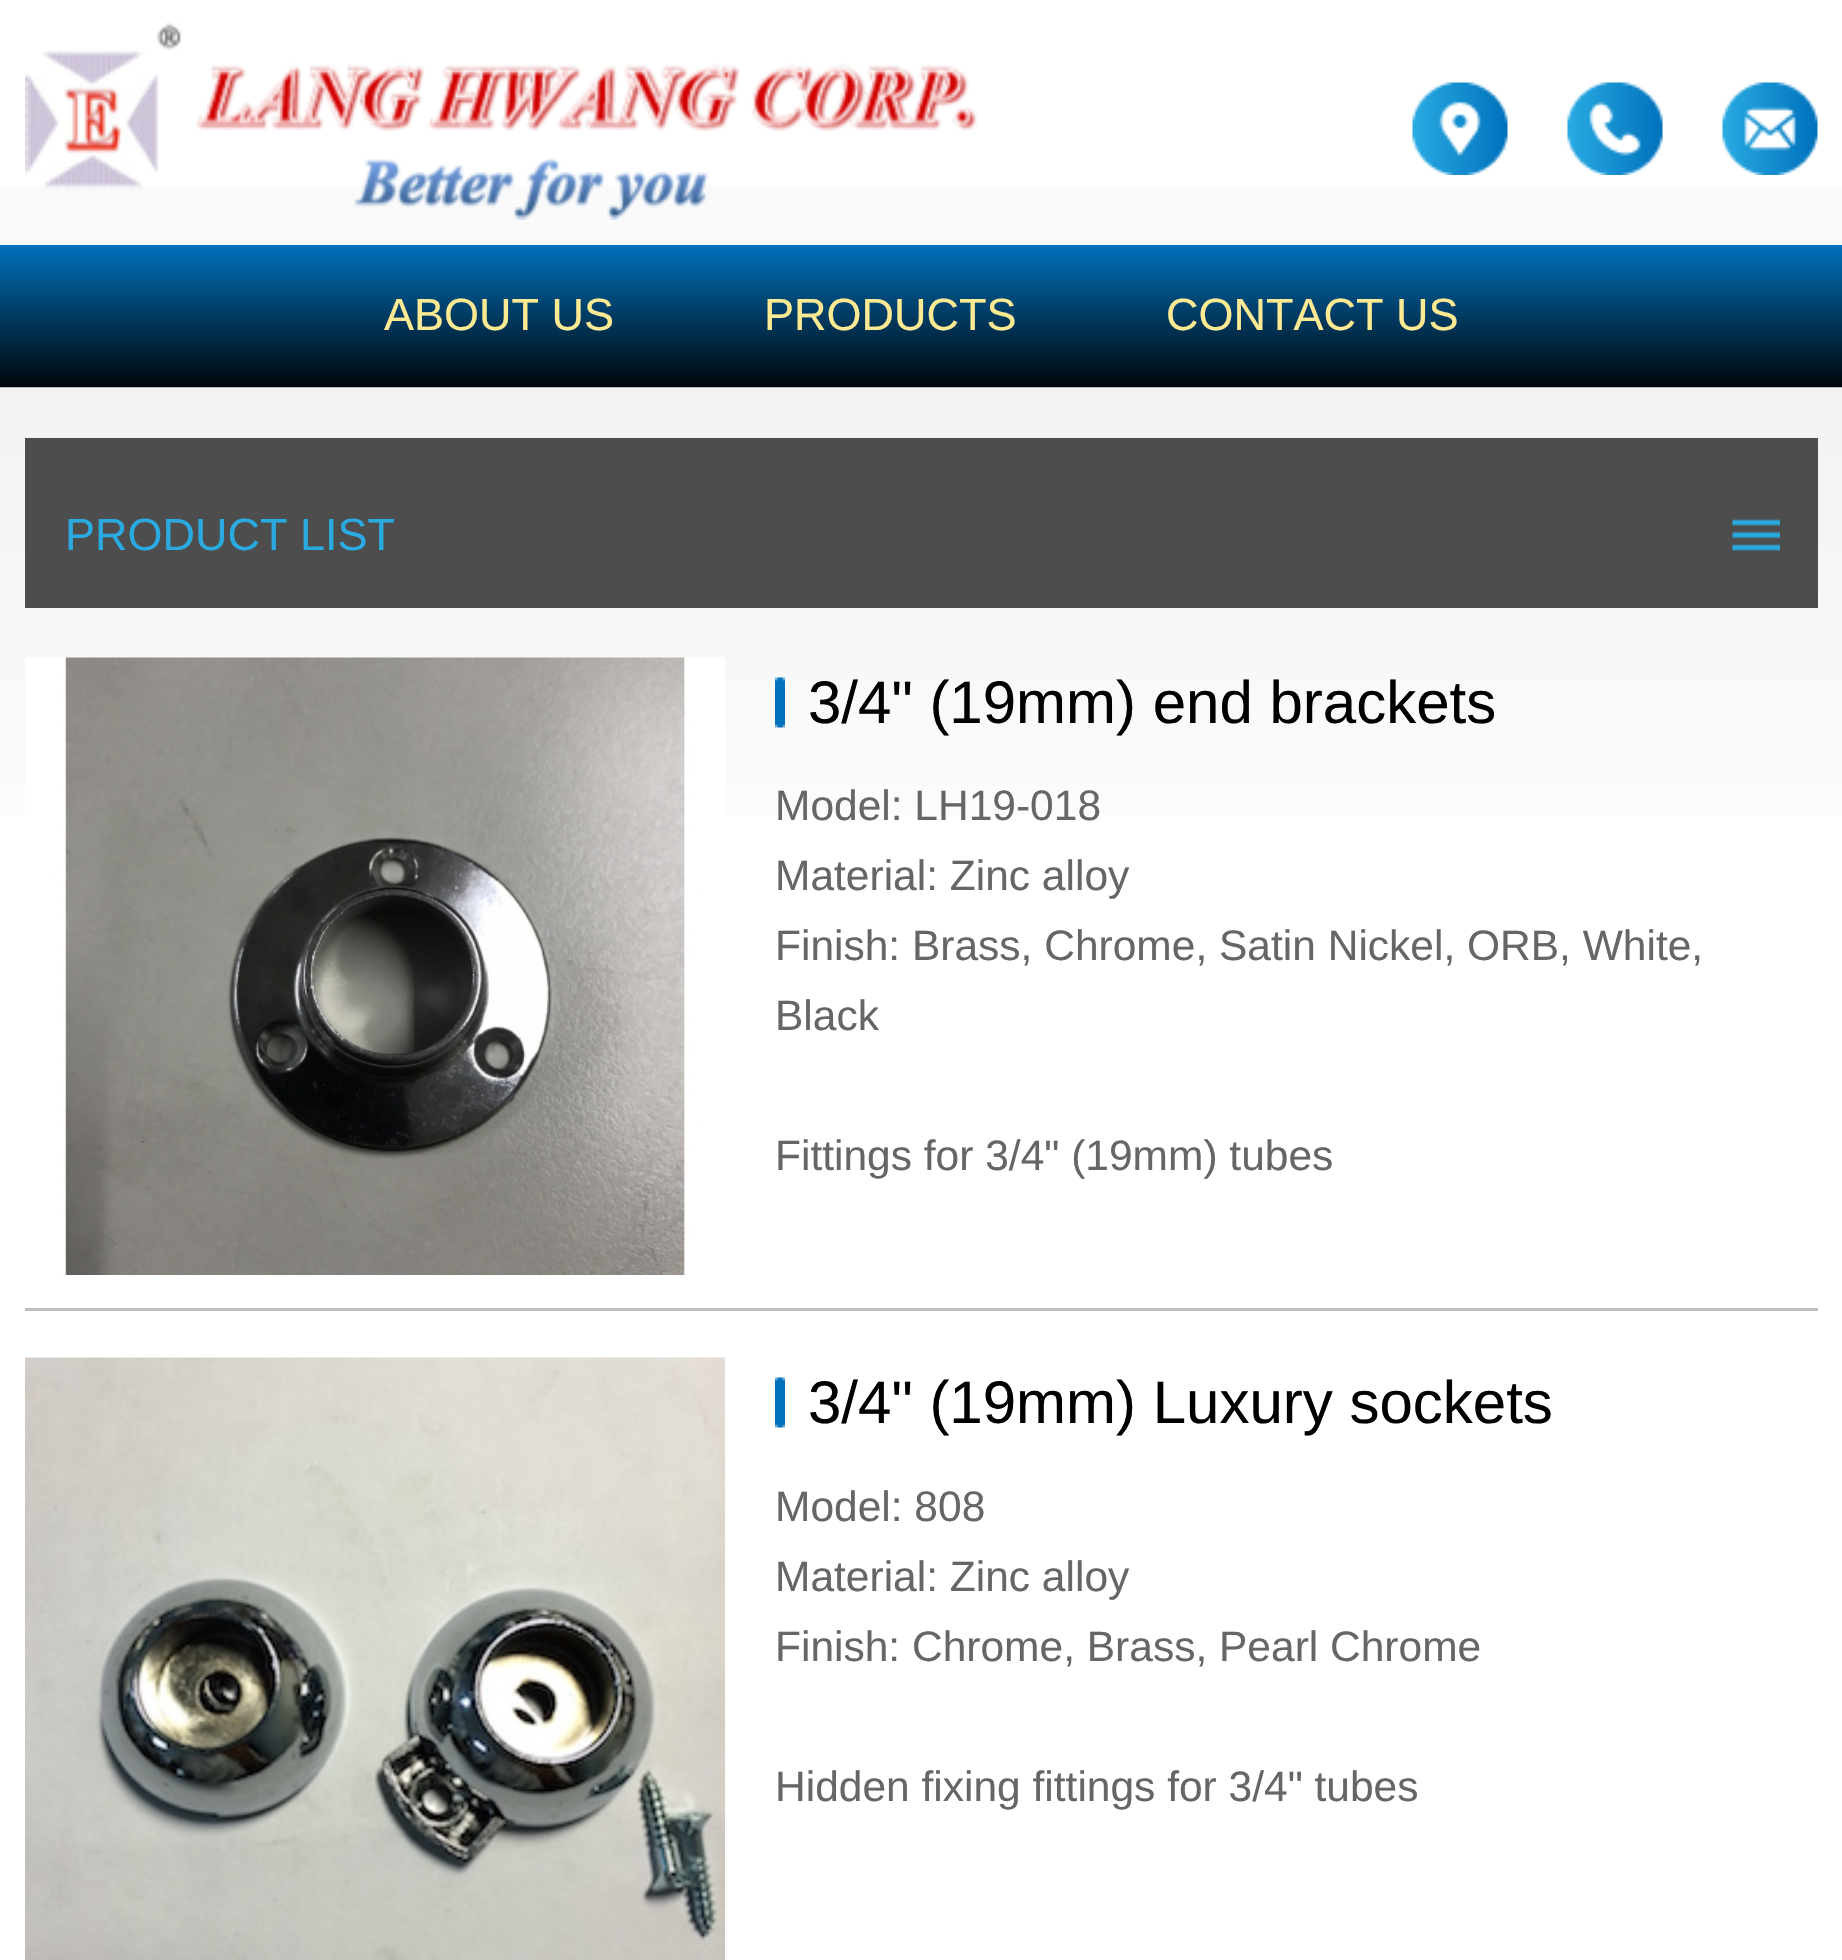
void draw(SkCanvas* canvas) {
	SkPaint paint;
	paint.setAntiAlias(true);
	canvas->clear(0xffffffff);
	paint.setColor(0xfffafafa);
	canvas->drawRect(SkRect::MakeXYWH(0, 185, 1842, 60), paint);
	canvas->drawImageRect(SkImages::DeferredFromEncodedData(SkData::MakeFromFileName("img1.png")), SkRect::MakeXYWH(25, 22, 953, 198), SkSamplingOptions());
	canvas->drawImageRect(SkImages::DeferredFromEncodedData(SkData::MakeFromFileName("img2.png")), SkRect::MakeXYWH(1412, 82, 96, 93), SkSamplingOptions());
	canvas->drawImageRect(SkImages::DeferredFromEncodedData(SkData::MakeFromFileName("img3.png")), SkRect::MakeXYWH(1567, 82, 96, 93), SkSamplingOptions());
	canvas->drawImageRect(SkImages::DeferredFromEncodedData(SkData::MakeFromFileName("img4.png")), SkRect::MakeXYWH(1722, 82, 96, 93), SkSamplingOptions());
	canvas->drawImageRect(SkImages::DeferredFromEncodedData(SkData::MakeFromFileName("img5.png")), SkRect::MakeXYWH(0, 245, 1842, 143), SkSamplingOptions());
	SkFont f1(fontMgr->matchFamilyStyle("Liberation Sans", SkFontStyle::Normal()), 45);
	f1.setSubpixel(true);
	paint.setColor(0xffffea94);
	canvas->drawString("ABOUT US", 384, 330, f1, paint);
	canvas->drawString("PRODUCTS", 764, 330, f1, paint);
	canvas->drawString("CONTACT US", 1166, 330, f1, paint);
	canvas->drawImageRect(SkImages::DeferredFromEncodedData(SkData::MakeFromFileName("img6.png")), SkRect::MakeXYWH(0, 387, 1842, 428), SkSamplingOptions());
	paint.setColor(0xff4d4d4d);
	canvas->drawRect(SkRect::MakeXYWH(25, 438, 1793, 170), paint);
	paint.setColor(0xff29abe2);
	canvas->drawString("PRODUCT LIST", 65, 550, f1, paint);
	canvas->drawImageRect(SkImages::DeferredFromEncodedData(SkData::MakeFromFileName("img7.png")), SkRect::MakeXYWH(1732, 519, 48, 32), SkSamplingOptions());
	paint.setColor(0xffbfbfbf);
	canvas->drawRect(SkRect::MakeXYWH(25, 1308, 1793, 3), paint);
	canvas->drawImageRect(SkImages::DeferredFromEncodedData(SkData::MakeFromFileName("img8.png")), SkRect::MakeXYWH(25, 657, 700, 618), SkSamplingOptions());
	canvas->drawImageRect(SkImages::DeferredFromEncodedData(SkData::MakeFromFileName("img9.png")), SkRect::MakeXYWH(775, 677, 10, 51), SkSamplingOptions());
	SkFont f2(fontMgr->matchFamilyStyle("Liberation Sans", SkFontStyle::Normal()), 60);
	f2.setSubpixel(true);
	paint.setColor(0xff000000);
	canvas->drawString("3/4\" (19mm) end brackets", 808, 723, f2, paint);
	SkFont f3(fontMgr->matchFamilyStyle("Liberation Sans", SkFontStyle::Normal()), 42.5);
	f3.setSubpixel(true);
	paint.setColor(0xff666666);
	canvas->drawString("Model: LH19-018", 775, 820, f3, paint);
	canvas->drawString("Material: Zinc alloy", 775, 890, f3, paint);
	canvas->drawString("Finish: Brass, Chrome, Satin Nickel, ORB, White,", 775, 960, f3, paint);
	canvas->drawString("Black", 775, 1030, f3, paint);
	canvas->drawString("Fittings for 3/4\" (19mm) tubes", 775, 1170, f3, paint);
	canvas->drawImageRect(SkImages::DeferredFromEncodedData(SkData::MakeFromFileName("img10.png")), SkRect::MakeXYWH(25, 1357, 700, 603), SkSamplingOptions());
	canvas->drawImageRect(SkImages::DeferredFromEncodedData(SkData::MakeFromFileName("img11.png")), SkRect::MakeXYWH(775, 1377, 10, 51), SkSamplingOptions());
	paint.setColor(0xff000000);
	canvas->drawString("3/4\" (19mm) Luxury sockets", 808, 1423, f2, paint);
	paint.setColor(0xff666666);
	canvas->drawString("Model: 808", 775, 1521, f3, paint);
	canvas->drawString("Material: Zinc alloy", 775, 1591, f3, paint);
	canvas->drawString("Finish: Chrome, Brass, Pearl Chrome", 775, 1661, f3, paint);
	canvas->drawString("Hidden fixing fittings for 3/4\" tubes", 775, 1801, f3, paint);
}
